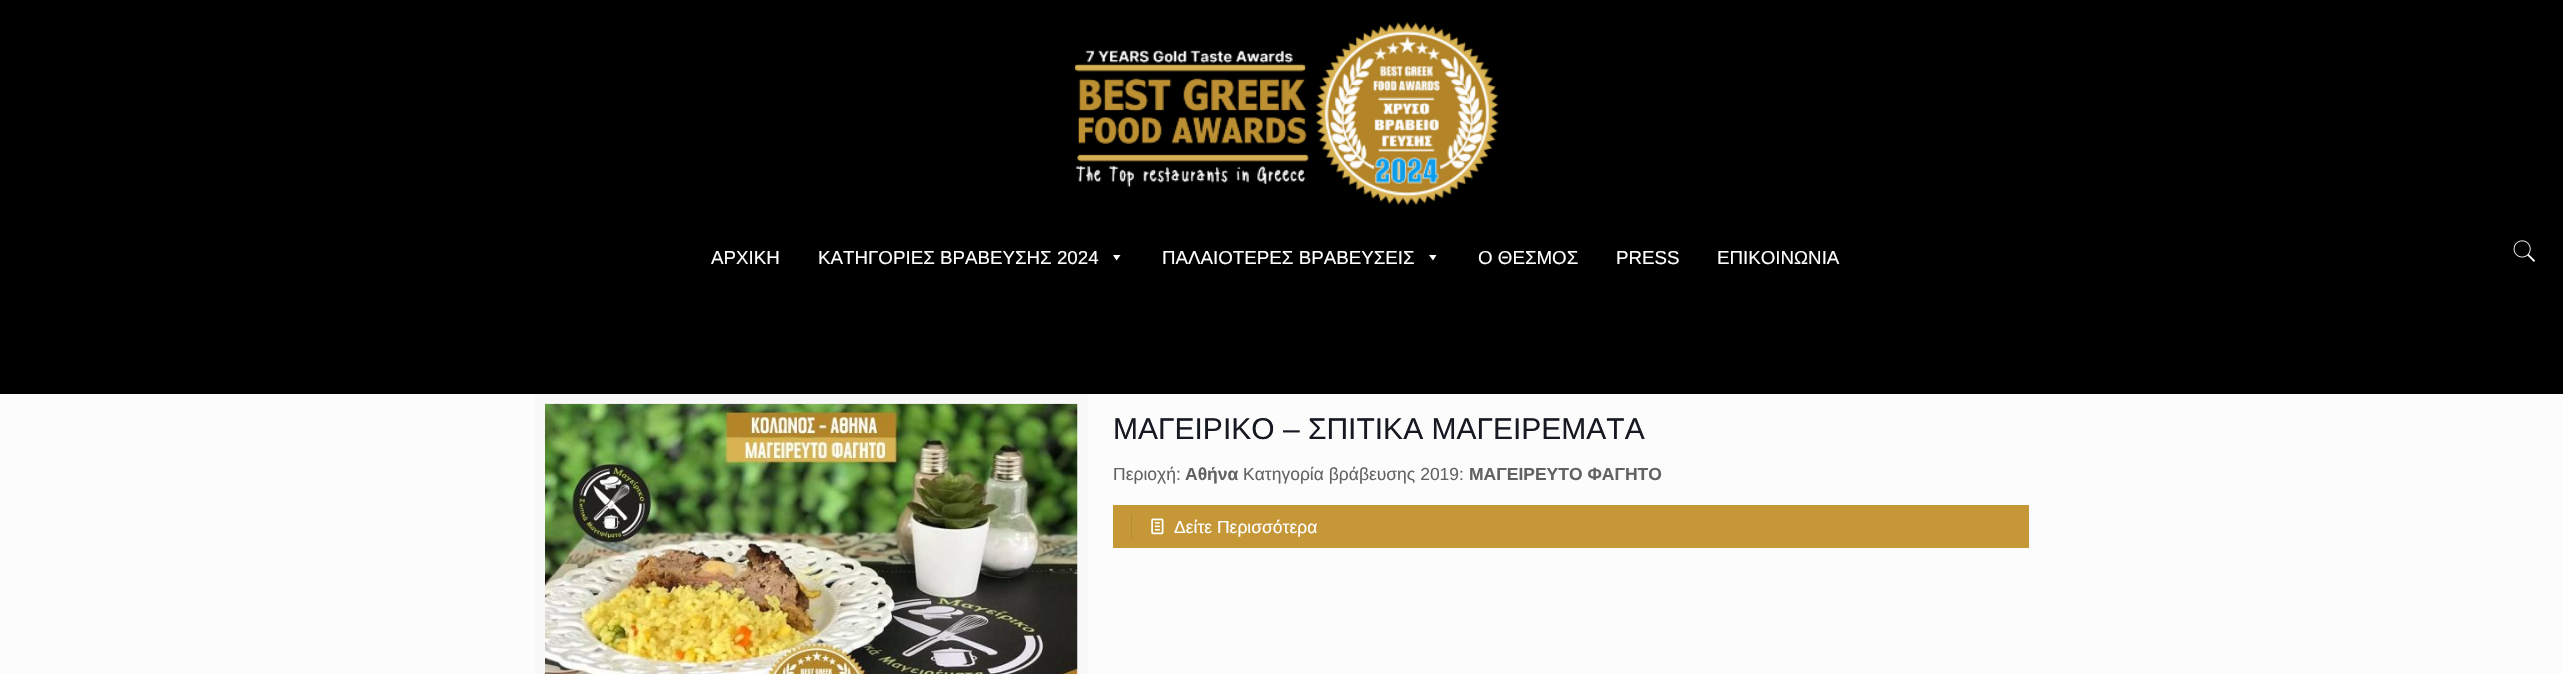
void draw(SkCanvas* canvas) {
	SkPaint paint;
	paint.setAntiAlias(true);
	auto svgPath = [&](const char* data, bool evenOdd = false) {
		SkPath result = *SkParsePath::FromSVGString(data);
		if (evenOdd) result.setFillType(SkPathFillType::kEvenOdd);
		return result;
	};
	canvas->clear(0xfffcfcfc);
	paint.setColor(0xff000000);
	canvas->drawRect(SkRect::MakeXYWH(0, 0, 2563, 394), paint);
	canvas->drawImageRect(SkImages::DeferredFromEncodedData(SkData::MakeFromFileName("img1.png")), SkRect::MakeXYWH(1074, 22, 425, 184), SkSamplingOptions());
	SkFont f1(fontMgr->matchFamilyStyle("Liberation Sans", SkFontStyle::Normal()), 18.75);
	f1.setSubpixel(true);
	paint.setColor(0xffffffff);
	canvas->drawString("ΑΡΧΙΚΗ", 711, 264, f1, paint);
	canvas->drawString("ΚΑΤΗΓΟΡΙΕΣ ΒΡΑΒΕΥΣΗΣ 2024", 818, 264, f1, paint);
	canvas->drawPath(svgPath("M1120.5 255L1116.5 260.5L1113 255Z"), paint);
	canvas->drawString("ΠΑΛΑΙΟΤΕΡΕΣ ΒΡΑΒΕΥΣΕΙΣ", 1162, 264, f1, paint);
	canvas->drawPath(svgPath("M1436.5 255L1433 260.5L1429 255Z"), paint);
	canvas->drawString("Ο ΘΕΣΜΟΣ", 1478, 264, f1, paint);
	canvas->drawString("PRESS", 1616, 264, f1, paint);
	canvas->drawString("ΕΠΙΚΟΙΝΩΝΙΑ", 1717, 264, f1, paint);
	canvas->drawImageRect(SkImages::DeferredFromEncodedData(SkData::MakeFromFileName("img2.png")), SkRect::MakeXYWH(2513, 240, 23, 22), SkSamplingOptions());
	paint.setStroke(true);
	paint.setStrokeWidth(10);
	paint.setColor(0xfff8f8f8);
	canvas->drawRect(SkRect::MakeXYWH(540, 399, 543, 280), paint);
	canvas->drawImageRect(SkImages::DeferredFromEncodedData(SkData::MakeFromFileName("img3.png")), SkRect::MakeXYWH(545, 403, 533, 271), SkSamplingOptions());
	SkFont f2(fontMgr->matchFamilyStyle("Liberation Sans", SkFontStyle::Normal()), 30);
	f2.setSubpixel(true);
	paint.setStroke(false);
	paint.setColor(0xff161922);
	canvas->drawString("ΜΑΓΕΙΡΙΚΟ – ΣΠΙΤΙΚΑ ΜΑΓΕΙΡΕΜΑΤΑ", 1113, 439, f2, paint);
	SkFont f3(fontMgr->matchFamilyStyle("Liberation Sans", SkFontStyle::Normal()), 17.5);
	f3.setSubpixel(true);
	paint.setColor(0xff626262);
	canvas->drawString("Περιοχή:", 1113, 480, f3, paint);
	SkFont f4(fontMgr->matchFamilyStyle("Liberation Sans", SkFontStyle::Bold()), 17.5);
	f4.setSubpixel(true);
	canvas->drawString("Αθήνα", 1185, 480, f4, paint);
	canvas->drawString("Κατηγορία βράβευσης 2019:", 1243, 480, f3, paint);
	canvas->drawString("ΜΑΓΕΙΡΕΥΤΟ ΦΑΓΗΤΟ", 1469, 480, f4, paint);
	paint.setColor(0xffc59737);
	canvas->drawRect(SkRect::MakeXYWH(1113, 505, 916, 43), paint);
	paint.setColor(0xffb58b33);
	canvas->drawRect(SkRect::MakeXYWH(1131, 514, 1, 25), paint);
	canvas->drawImageRect(SkImages::DeferredFromEncodedData(SkData::MakeFromFileName("img4.png")), SkRect::MakeXYWH(1151, 518, 13, 17), SkSamplingOptions());
	paint.setColor(0xffffffff);
	canvas->drawString("Δείτε Περισσότερα", 1174, 533, f3, paint);
}
